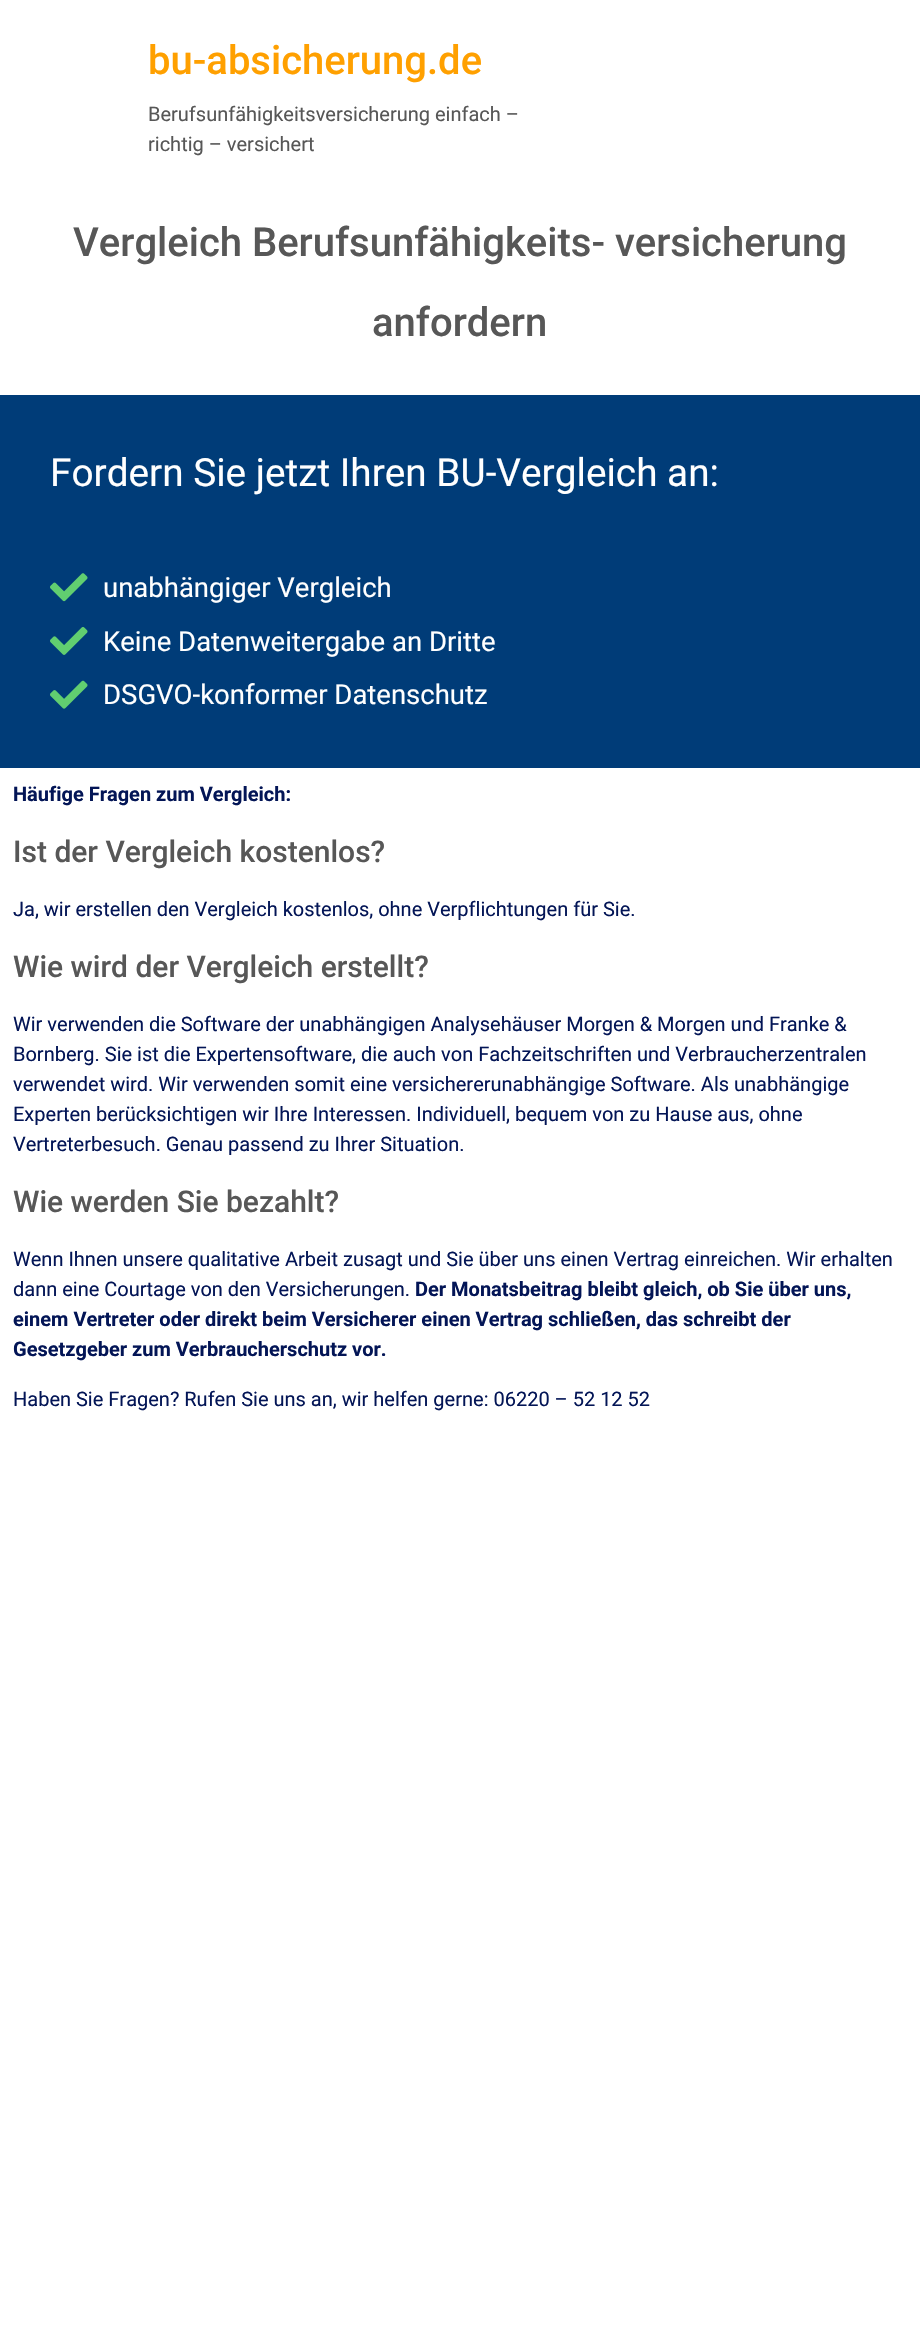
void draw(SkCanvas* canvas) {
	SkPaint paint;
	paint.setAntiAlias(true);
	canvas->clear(0xffffffff);
	SkFont f1(fontMgr->matchFamilyStyle("Roboto", SkFontStyle(500, SkFontStyle::kNormal_Width, SkFontStyle::kUpright_Slant)), 40);
	f1.setSubpixel(true);
	paint.setColor(0xffffa000);
	canvas->drawString("bu-absicherung.de", 148, 74, f1, paint);
	SkFont f2(fontMgr->matchFamilyStyle("Roboto", SkFontStyle::Normal()), 20);
	f2.setSubpixel(true);
	paint.setColor(0xff575757);
	canvas->drawString("Berufsunfähigkeitsversicherung einfach –", 148, 121, f2, paint);
	canvas->drawString("richtig – versichert", 148, 151, f2, paint);
	canvas->drawString("Vergleich Berufsunfähigkeits- versicherung", 73, 256, f1, paint);
	canvas->drawString("anfordern", 372, 336, f1, paint);
	paint.setColor(0xff003c78);
	canvas->drawRect(SkRect::MakeXYWH(0, 395, 920, 373), paint);
	SkFont f3(fontMgr->matchFamilyStyle("Roboto", SkFontStyle::Normal()), 38.75);
	f3.setSubpixel(true);
	paint.setColor(0xffffffff);
	canvas->drawString("Fordern Sie jetzt Ihren BU-Vergleich an:", 50, 486, f3, paint);
	canvas->drawImageRect(SkImages::DeferredFromEncodedData(SkData::MakeFromFileName("img1.png")), SkRect::MakeXYWH(50, 573, 38, 29), SkSamplingOptions());
	SkFont f4(fontMgr->matchFamilyStyle("Roboto", SkFontStyle::Normal()), 27.5);
	f4.setSubpixel(true);
	canvas->drawString("unabhängiger Vergleich", 103, 597, f4, paint);
	canvas->drawImageRect(SkImages::DeferredFromEncodedData(SkData::MakeFromFileName("img2.png")), SkRect::MakeXYWH(50, 627, 38, 28), SkSamplingOptions());
	canvas->drawString("Keine Datenweitergabe an Dritte", 103, 651, f4, paint);
	canvas->drawImageRect(SkImages::DeferredFromEncodedData(SkData::MakeFromFileName("img3.png")), SkRect::MakeXYWH(50, 680, 38, 29), SkSamplingOptions());
	canvas->drawString("DSGVO-konformer Datenschutz", 103, 704, f4, paint);
	SkFont f5(fontMgr->matchFamilyStyle("Roboto", SkFontStyle::Bold()), 20);
	f5.setSubpixel(true);
	paint.setColor(0xff031556);
	canvas->drawString("Häufige Fragen zum Vergleich:", 13, 801, f5, paint);
	SkFont f6(fontMgr->matchFamilyStyle("Roboto", SkFontStyle(500, SkFontStyle::kNormal_Width, SkFontStyle::kUpright_Slant)), 30);
	f6.setSubpixel(true);
	paint.setColor(0xff575757);
	canvas->drawString("Ist der Vergleich kostenlos?", 13, 862, f6, paint);
	paint.setColor(0xff031556);
	canvas->drawString("Ja, wir erstellen den Vergleich kostenlos, ohne Verpflichtungen für Sie.", 13, 916, f2, paint);
	paint.setColor(0xff575757);
	canvas->drawString("Wie wird der Vergleich erstellt?", 13, 977, f6, paint);
	paint.setColor(0xff031556);
	canvas->drawString("Wir verwenden die Software der unabhängigen Analysehäuser Morgen & Morgen und Franke &", 13, 1031, f2, paint);
	canvas->drawString("Bornberg. Sie ist die Expertensoftware, die auch von Fachzeitschriften und Verbraucherzentralen", 13, 1061, f2, paint);
	canvas->drawString("verwendet wird. Wir verwenden somit eine versichererunabhängige Software. Als unabhängige", 13, 1091, f2, paint);
	canvas->drawString("Experten berücksichtigen wir Ihre Interessen. Individuell, bequem von zu Hause aus, ohne", 13, 1121, f2, paint);
	canvas->drawString("Vertreterbesuch. Genau passend zu Ihrer Situation.", 13, 1151, f2, paint);
	paint.setColor(0xff575757);
	canvas->drawString("Wie werden Sie bezahlt?", 13, 1212, f6, paint);
	paint.setColor(0xff031556);
	canvas->drawString("Wenn Ihnen unsere qualitative Arbeit zusagt und Sie über uns einen Vertrag einreichen. Wir erhalten", 13, 1266, f2, paint);
	canvas->drawString("dann eine Courtage von den Versicherungen.", 13, 1296, f2, paint);
	canvas->drawString("Der Monatsbeitrag bleibt gleich, ob Sie über uns,", 415, 1296, f5, paint);
	canvas->drawString("einem Vertreter oder direkt beim Versicherer einen Vertrag schließen, das schreibt der", 13, 1326, f5, paint);
	canvas->drawString("Gesetzgeber zum Verbraucherschutz vor.", 13, 1356, f5, paint);
	canvas->drawString("Haben Sie Fragen? Rufen Sie uns an, wir helfen gerne: 06220 – 52 12 52", 13, 1406, f2, paint);
}
